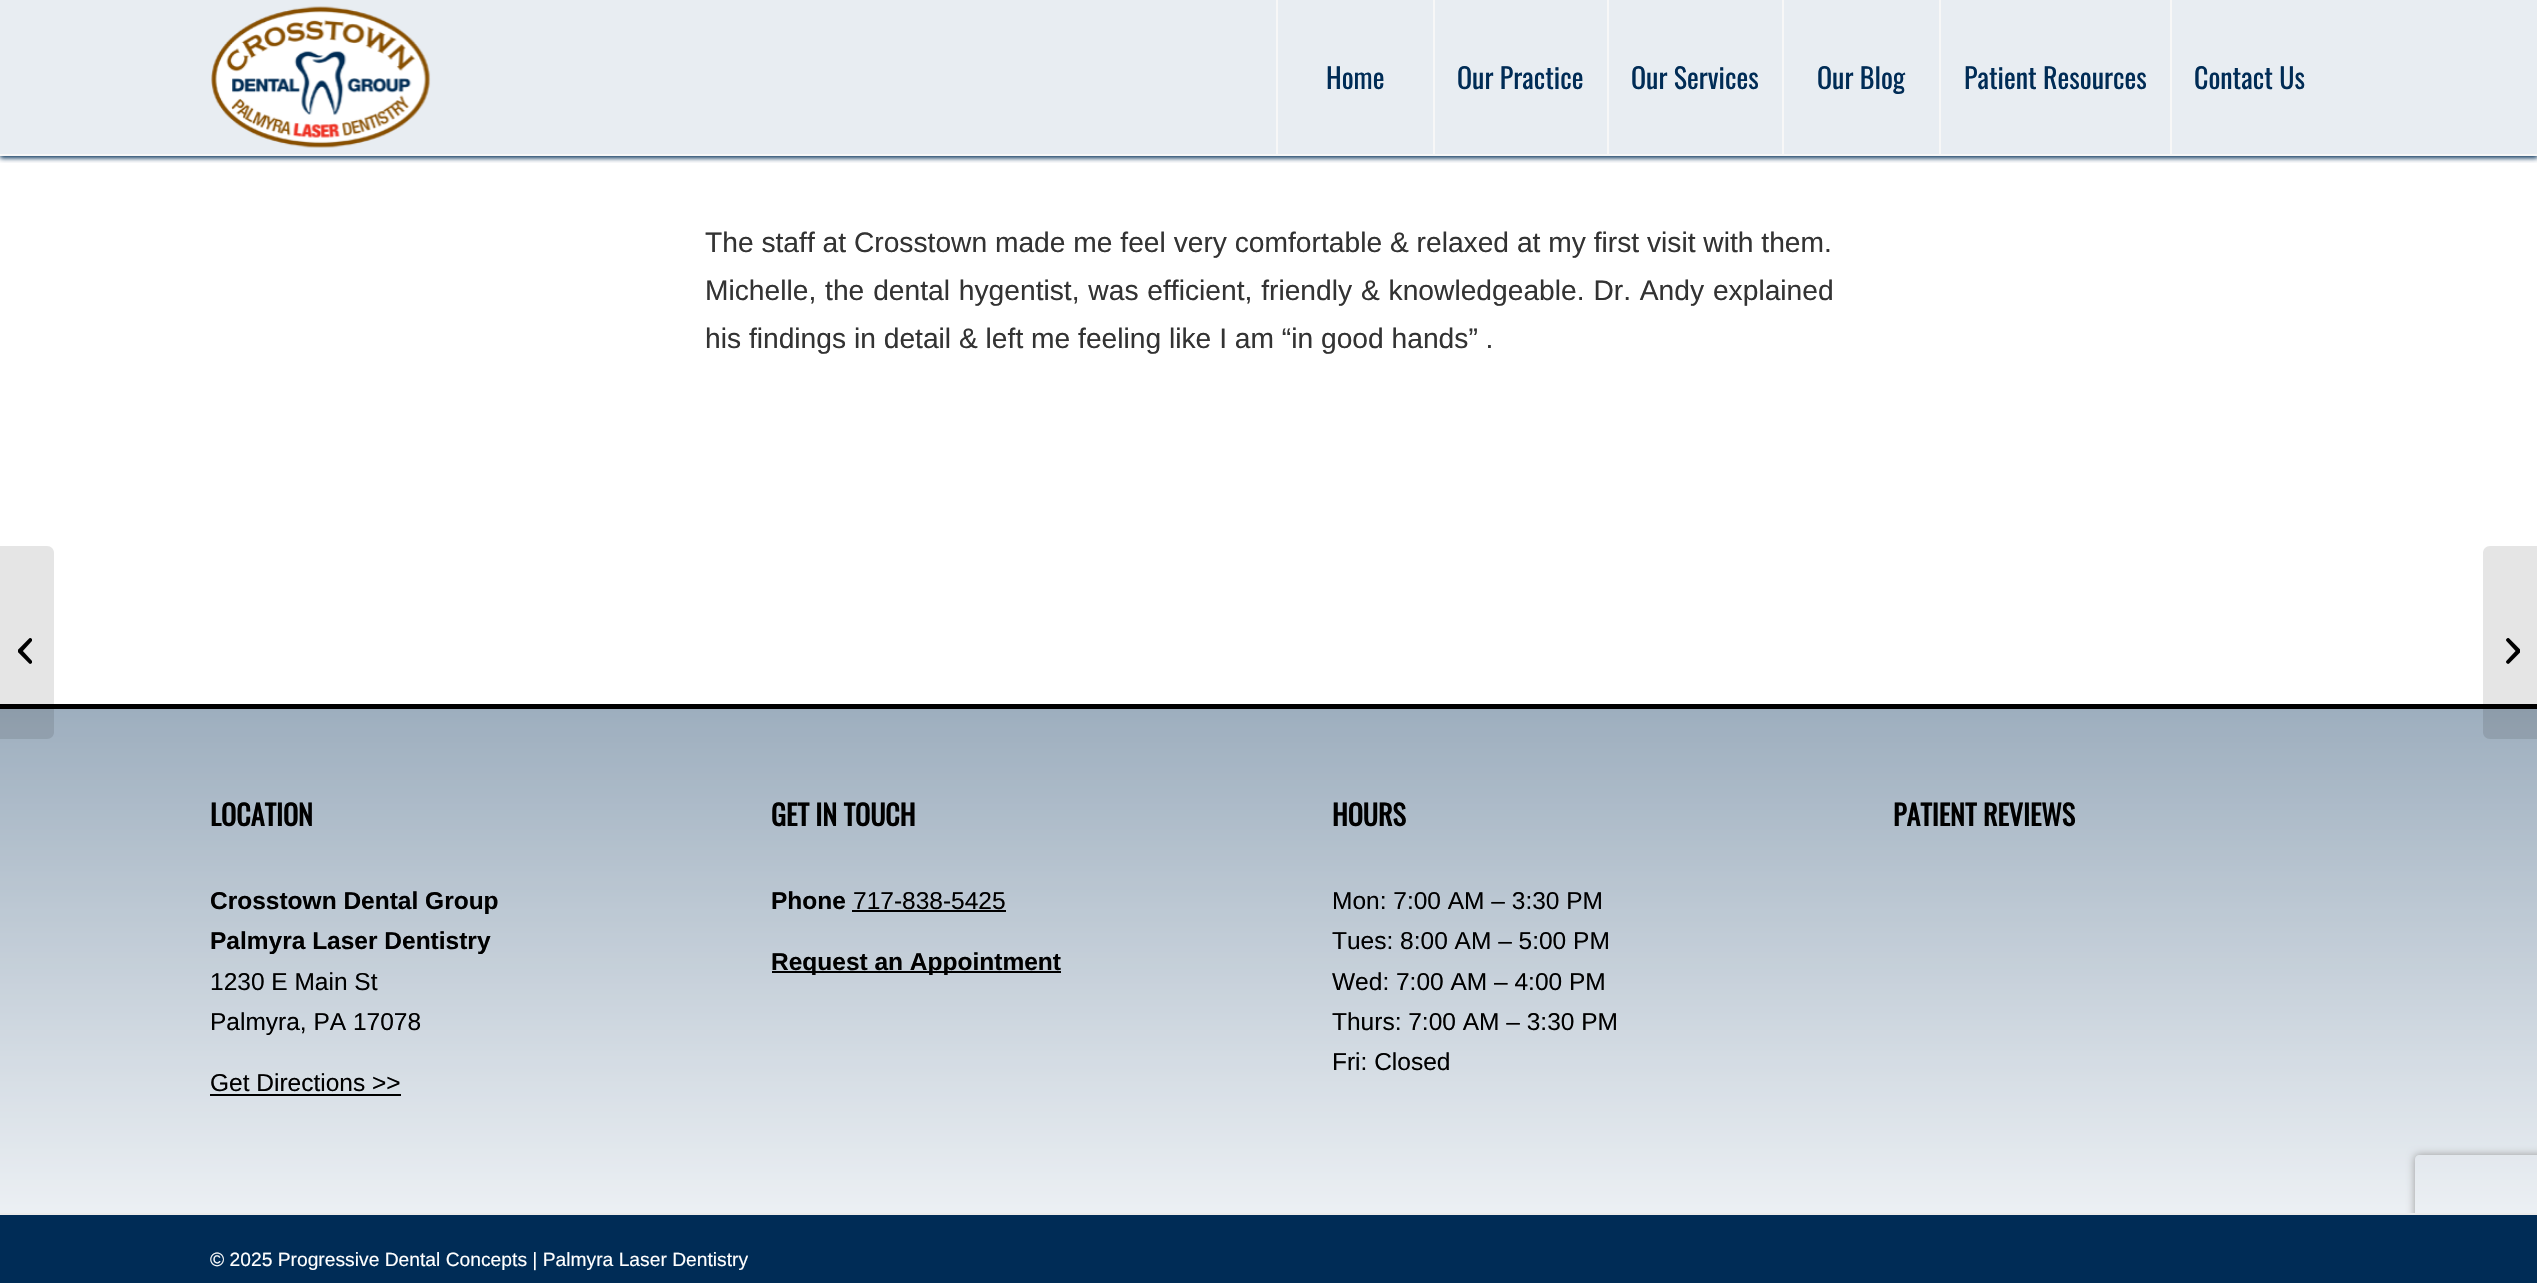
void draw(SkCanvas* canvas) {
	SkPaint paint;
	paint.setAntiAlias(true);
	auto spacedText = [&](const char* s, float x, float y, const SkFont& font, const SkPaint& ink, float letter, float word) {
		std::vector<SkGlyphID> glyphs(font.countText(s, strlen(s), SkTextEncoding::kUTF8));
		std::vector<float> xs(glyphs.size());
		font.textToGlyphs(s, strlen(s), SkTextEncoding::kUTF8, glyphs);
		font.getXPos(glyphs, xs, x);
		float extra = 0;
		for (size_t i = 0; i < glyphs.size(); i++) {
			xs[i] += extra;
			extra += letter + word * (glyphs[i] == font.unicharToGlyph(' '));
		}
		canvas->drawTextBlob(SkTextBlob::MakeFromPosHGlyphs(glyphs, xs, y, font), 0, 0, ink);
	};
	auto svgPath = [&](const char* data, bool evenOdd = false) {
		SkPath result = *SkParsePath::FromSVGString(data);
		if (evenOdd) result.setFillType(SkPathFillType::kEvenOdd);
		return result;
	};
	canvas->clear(0xffffffff);
	paint.setColor(0xffe8edf2);
	canvas->drawRect(SkRect::MakeXYWH(0, 0, 2537, 154), paint);
	canvas->save();
	canvas->clipRect(SkRect::MakeXYWH(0, 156, 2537, 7));
	paint.setColor(0xff002d56);
	paint.setMaskFilter(SkMaskFilter::MakeBlur(kNormal_SkBlurStyle, 2.5));
	canvas->drawRect(SkRect::MakeXYWH(0, 0, 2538, 158), paint);
	paint.setMaskFilter(nullptr);
	canvas->restore();
	paint.setColor(0xfff7f7f7);
	canvas->drawRect(SkRect::MakeXYWH(0, 154, 2537, 2), paint);
	canvas->drawImageRect(SkImages::DeferredFromEncodedData(SkData::MakeFromFileName("img1.png")), SkRect::MakeXYWH(211, 6, 220, 142), SkSamplingOptions());
	canvas->drawRect(SkRect::MakeXYWH(1276, 0, 2, 154), paint);
	SkFont f1(fontMgr->matchFamilyStyle("Oswald", SkFontStyle::Normal()), 28);
	f1.setSubpixel(true);
	paint.setColor(0xff002c56);
	canvas->drawString("Home", 1326, 89, f1, paint);
	paint.setColor(0xfff7f7f7);
	canvas->drawRect(SkRect::MakeXYWH(1433, 0, 2, 154), paint);
	paint.setColor(0xff002c56);
	canvas->drawString("Our Practice", 1457, 89, f1, paint);
	paint.setColor(0xfff7f7f7);
	canvas->drawRect(SkRect::MakeXYWH(1607, 0, 2, 154), paint);
	paint.setColor(0xff002c56);
	canvas->drawString("Our Services", 1631, 89, f1, paint);
	paint.setColor(0xfff7f7f7);
	canvas->drawRect(SkRect::MakeXYWH(1782, 0, 2, 154), paint);
	paint.setColor(0xff002c56);
	canvas->drawString("Our Blog", 1817, 89, f1, paint);
	paint.setColor(0xfff7f7f7);
	canvas->drawRect(SkRect::MakeXYWH(1939, 0, 2, 154), paint);
	paint.setColor(0xff002c56);
	canvas->drawString("Patient Resources", 1964, 89, f1, paint);
	paint.setColor(0xfff7f7f7);
	canvas->drawRect(SkRect::MakeXYWH(2170, 0, 2, 154), paint);
	paint.setColor(0xff002c56);
	canvas->drawString("Contact Us", 2194, 89, f1, paint);
	{
		const SkColor colors[] = {0xff859aae, 0xffe7ecf1};
		const float stops[] = {0, 1};
		const SkPoint ends[] = {{1269, 709}, {1269, 1213}};
		paint.setShader(SkGradientShader::MakeLinear(ends, colors, stops, 2, SkTileMode::kClamp));
		paint.setAlpha(255);
	}
	canvas->drawRect(SkRect::MakeXYWH(0, 709, 2537, 504), paint);
	paint.setShader(nullptr);
	paint.setColor(0xff000000);
	canvas->drawRect(SkRect::MakeXYWH(0, 704, 2537, 5), paint);
	canvas->save();
	canvas->clipPath(svgPath("M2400 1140H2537V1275H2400ZM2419 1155H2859C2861 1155 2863 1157 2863 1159V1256C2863 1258 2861 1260 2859 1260H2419C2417 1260 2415 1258 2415 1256V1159C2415 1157 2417 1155 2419 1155Z", true), true);
	paint.setColor(0xff808080);
	paint.setMaskFilter(SkMaskFilter::MakeBlur(kNormal_SkBlurStyle, 4.5));
	canvas->drawRoundRect(SkRect::MakeXYWH(2415, 1155, 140, 105), 4, 4, paint);
	paint.setMaskFilter(nullptr);
	canvas->restore();
	paint.setColor(0x33ffffff);
	canvas->drawRect(SkRect::MakeXYWH(0, 709, 2537, 504), paint);
	paint.setColor(0x1a000000);
	canvas->drawPath(svgPath("M0 546H47C51 546 54 549 54 553V732C54 736 51 739 47 739H0Z"), paint);
	canvas->drawImageRect(SkImages::DeferredFromEncodedData(SkData::MakeFromFileName("img2.png")), SkRect::MakeXYWH(18, 638, 14, 26), SkSamplingOptions());
	SkFont f2(fontMgr->matchFamilyStyle("Arimo", SkFontStyle::Normal()), 28.2);
	f2.setSubpixel(true);
	paint.setColor(0xff333333);
	canvas->drawString("The staff at Crosstown made me feel very comfortable & relaxed at my first visit with them.", 705, 252, f2, paint);
	spacedText("Michelle, the dental hygentist, was efficient, friendly & knowledgeable. Dr. Andy explained", 705, 300, f2, paint, 0, 1);
	canvas->drawString("his findings in detail & left me feeling like I am “in good hands” .", 705, 348, f2, paint);
	SkFont f3(fontMgr->matchFamilyStyle("Oswald", SkFontStyle::Bold()), 28);
	f3.setSubpixel(true);
	paint.setColor(0xff000000);
	canvas->drawString("LOCATION", 210, 826, f3, paint);
	SkFont f4(fontMgr->matchFamilyStyle("Arimo", SkFontStyle::Bold()), 24.5);
	f4.setSubpixel(true);
	canvas->drawString("Crosstown Dental Group", 210, 909, f4, paint);
	canvas->drawString("Palmyra Laser Dentistry", 210, 949, f4, paint);
	SkFont f5(fontMgr->matchFamilyStyle("Arimo", SkFontStyle::Normal()), 24.5);
	f5.setSubpixel(true);
	canvas->drawString("1230 E Main St", 210, 990, f5, paint);
	canvas->drawString("Palmyra, PA 17078", 210, 1030, f5, paint);
	canvas->drawString("Get Directions >>", 210, 1091, f5, paint);
	canvas->drawRect(SkRect::MakeXYWH(210, 1094, 191, 2), paint);
	canvas->drawString("GET IN TOUCH", 771, 826, f3, paint);
	canvas->drawString("Phone", 771, 909, f4, paint);
	canvas->drawString("717-838-5425", 853, 909, f5, paint);
	canvas->drawRect(SkRect::MakeXYWH(852, 910, 154, 2), paint);
	canvas->drawRect(SkRect::MakeXYWH(772, 971, 289, 2), paint);
	canvas->drawString("Request an Appointment", 771, 970, f4, paint);
	canvas->drawString("HOURS", 1332, 826, f3, paint);
	canvas->drawString("Mon: 7:00 AM – 3:30 PM", 1332, 909, f5, paint);
	canvas->drawString("Tues: 8:00 AM – 5:00 PM", 1332, 949, f5, paint);
	canvas->drawString("Wed: 7:00 AM – 4:00 PM", 1332, 990, f5, paint);
	canvas->drawString("Thurs: 7:00 AM – 3:30 PM", 1332, 1030, f5, paint);
	canvas->drawString("Fri: Closed", 1332, 1070, f5, paint);
	canvas->drawString("PATIENT REVIEWS", 1893, 826, f3, paint);
	paint.setColor(0xff002c56);
	canvas->drawRect(SkRect::MakeXYWH(0, 1215, 2537, 68), paint);
	paint.setColor(0xffebebeb);
	canvas->drawRect(SkRect::MakeXYWH(0, 1213, 2537, 2), paint);
	SkFont f6(fontMgr->matchFamilyStyle("Arimo", SkFontStyle::Normal()), 19.25);
	f6.setSubpixel(true);
	paint.setColor(0xffffffff);
	canvas->drawString("© 2025 Progressive Dental Concepts | Palmyra Laser Dentistry", 210, 1266, f6, paint);
	paint.setColor(0x1a000000);
	canvas->drawPath(svgPath("M2490 546H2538V739H2490C2486 739 2483 736 2483 732V553C2483 549 2486 546 2490 546Z"), paint);
	canvas->drawImageRect(SkImages::DeferredFromEncodedData(SkData::MakeFromFileName("img3.png")), SkRect::MakeXYWH(2506, 638, 14, 26), SkSamplingOptions());
}
